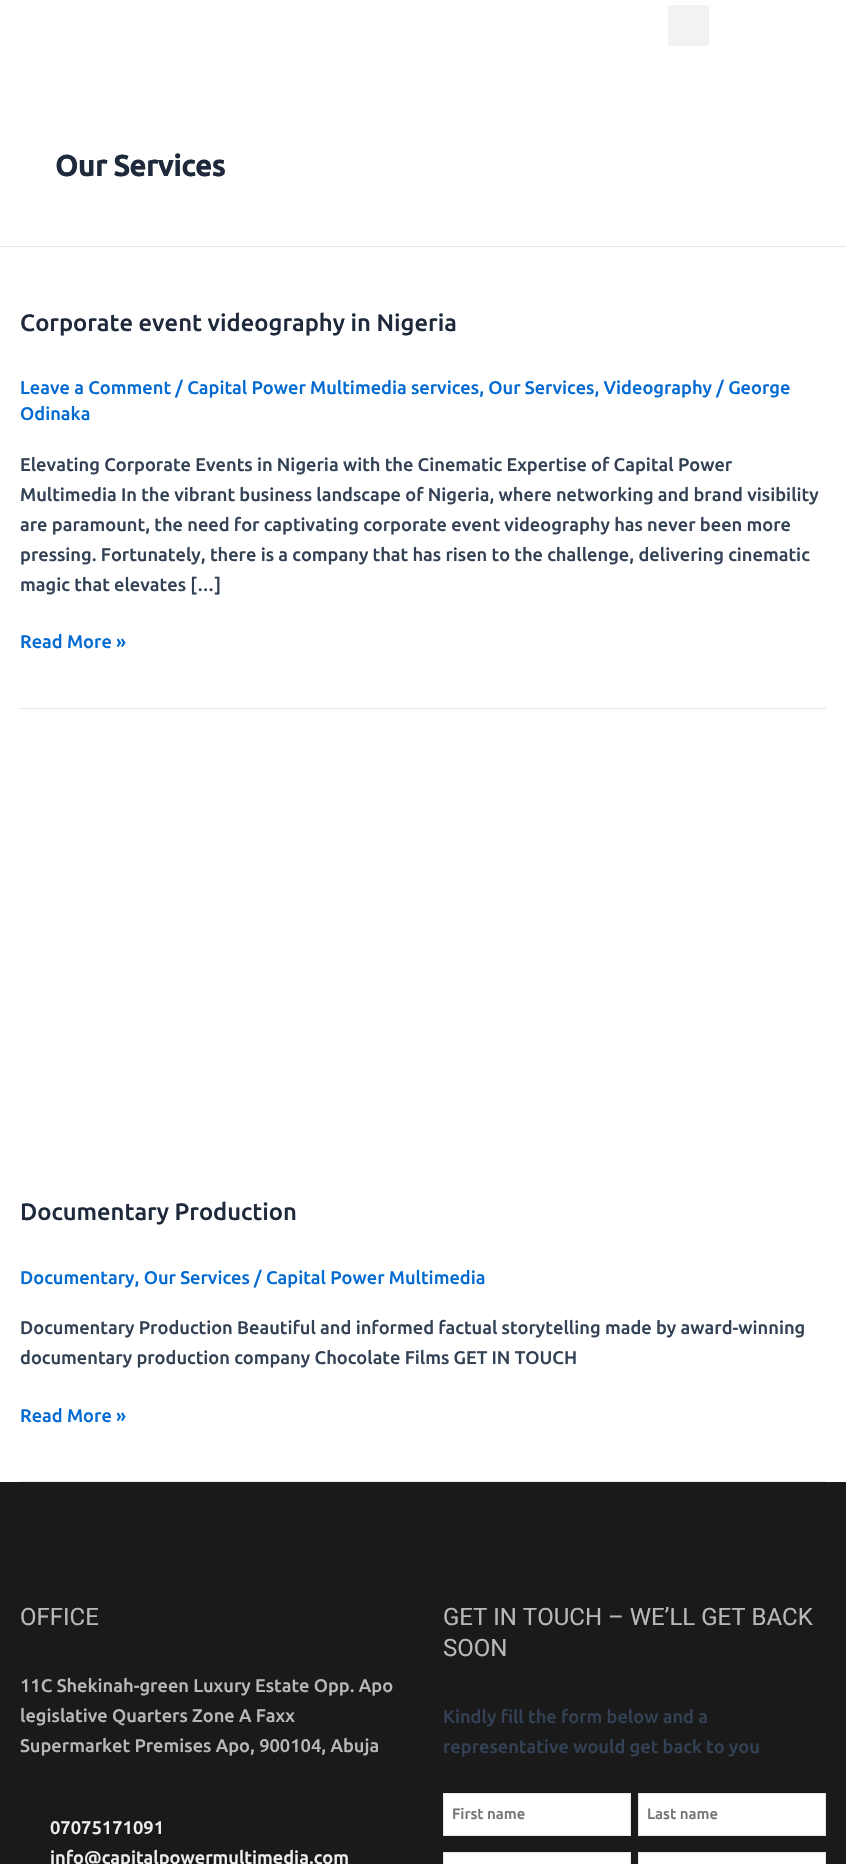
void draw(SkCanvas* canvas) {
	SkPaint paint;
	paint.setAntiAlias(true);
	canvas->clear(0xffffffff);
	paint.setColor(0xfff2f2f2);
	canvas->drawRoundRect(SkRect::MakeXYWH(668, 5, 41, 41), 3, 3, paint);
	paint.setColor(0xffe2e8f0);
	canvas->drawRect(SkRect::MakeXYWH(0, 246, 846, 1), paint);
	SkFont f1(fontMgr->matchFamilyStyle("Ubuntu", SkFontStyle::Bold()), 29.25);
	f1.setSubpixel(true);
	paint.setColor(0xff1e293b);
	canvas->drawString("Our Services", 55, 176, f1, paint);
	paint.setColor(0xffe2e8f0);
	canvas->drawRect(SkRect::MakeXYWH(20, 708, 806, 1), paint);
	SkFont f2(fontMgr->matchFamilyStyle("Ubuntu", SkFontStyle(500, SkFontStyle::kNormal_Width, SkFontStyle::kUpright_Slant)), 23.75);
	f2.setSubpixel(true);
	paint.setColor(0xff1e293b);
	canvas->drawString("Corporate event videography in Nigeria", 20, 331, f2, paint);
	SkFont f3(fontMgr->matchFamilyStyle("Ubuntu", SkFontStyle(500, SkFontStyle::kNormal_Width, SkFontStyle::kUpright_Slant)), 18.25);
	f3.setSubpixel(true);
	paint.setColor(0xff046bd2);
	canvas->drawString("Leave a Comment / Capital Power Multimedia services, Our Services, Videography / George", 20, 394, f3, paint);
	canvas->drawString("Odinaka", 20, 420, f3, paint);
	paint.setColor(0xff334155);
	canvas->drawString("Elevating Corporate Events in Nigeria with the Cinematic Expertise of Capital Power", 20, 471, f3, paint);
	canvas->drawString("Multimedia In the vibrant business landscape of Nigeria, where networking and brand visibility", 20, 501, f3, paint);
	canvas->drawString("are paramount, the need for captivating corporate event videography has never been more", 20, 531, f3, paint);
	canvas->drawString("pressing. Fortunately, there is a company that has risen to the challenge, delivering cinematic", 20, 561, f3, paint);
	canvas->drawString("magic that elevates […]", 20, 591, f3, paint);
	paint.setColor(0xff046bd2);
	canvas->drawString("Read More »", 20, 648, f3, paint);
	paint.setColor(0xffe2e8f0);
	canvas->drawRect(SkRect::MakeXYWH(20, 1481, 806, 1), paint);
	paint.setColor(0xff1e293b);
	canvas->drawString("Documentary Production", 20, 1220, f2, paint);
	paint.setColor(0xff046bd2);
	canvas->drawString("Documentary, Our Services / Capital Power Multimedia", 20, 1284, f3, paint);
	paint.setColor(0xff334155);
	canvas->drawString("Documentary Production Beautiful and informed factual storytelling made by award-winning", 20, 1334, f3, paint);
	canvas->drawString("documentary production company Chocolate Films GET IN TOUCH", 20, 1364, f3, paint);
	paint.setColor(0xff046bd2);
	canvas->drawString("Read More »", 20, 1422, f3, paint);
	paint.setColor(0xff1a1a1a);
	canvas->drawRect(SkRect::MakeXYWH(0, 1482, 846, 382), paint);
	SkFont f4(fontMgr->matchFamilyStyle("Roboto", SkFontStyle::Normal()), 24);
	f4.setSubpixel(true);
	paint.setColor(0xffb8b8b8);
	canvas->drawString("OFFICE", 20, 1625, f4, paint);
	canvas->drawString("11C Shekinah-green Luxury Estate Opp. Apo", 20, 1692, f3, paint);
	canvas->drawString("legislative Quarters Zone A Faxx", 20, 1722, f3, paint);
	canvas->drawString("Supermarket Premises Apo, 900104, Abuja", 20, 1752, f3, paint);
	paint.setColor(0xffeeeeee);
	canvas->drawString("07075171091", 50, 1834, f3, paint);
	canvas->drawString("info@capitalpowermultimedia.com", 50, 1864, f3, paint);
	paint.setColor(0xffb8b8b8);
	canvas->drawString("GET IN TOUCH – WE’LL GET BACK", 443, 1625, f4, paint);
	canvas->drawString("SOON", 443, 1656, f4, paint);
	paint.setColor(0xff334155);
	canvas->drawString("Kindly fill the form below and a", 443, 1723, f3, paint);
	canvas->drawString("representative would get back to you", 443, 1753, f3, paint);
	paint.setColor(0xffffffff);
	canvas->drawRect(SkRect::MakeXYWH(443.5, 1793.5, 187, 42), paint);
	paint.setStroke(true);
	paint.setStrokeWidth(1);
	paint.setColor(0xffe2e8f0);
	canvas->drawRect(SkRect::MakeXYWH(443.5, 1793.5, 187, 42), paint);
	SkFont f5(fontMgr->matchFamilyStyle("Ubuntu", SkFontStyle(500, SkFontStyle::kNormal_Width, SkFontStyle::kUpright_Slant)), 15);
	f5.setSubpixel(true);
	paint.setStroke(false);
	paint.setColor(0xff757575);
	canvas->drawString("First name", 452, 1819, f5, paint);
	paint.setColor(0xffffffff);
	canvas->drawRect(SkRect::MakeXYWH(638.5, 1793.5, 187, 42), paint);
	paint.setStroke(true);
	paint.setColor(0xffe2e8f0);
	canvas->drawRect(SkRect::MakeXYWH(638.5, 1793.5, 187, 42), paint);
	paint.setStroke(false);
	paint.setColor(0xff757575);
	canvas->drawString("Last name", 647, 1819, f5, paint);
	paint.setColor(0xffffffff);
	canvas->drawRect(SkRect::MakeXYWH(443.5, 1852.5, 187, 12), paint);
	paint.setStroke(true);
	paint.setColor(0xffe2e8f0);
	canvas->drawRect(SkRect::MakeXYWH(443.5, 1852.5, 187, 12), paint);
	paint.setStroke(false);
	paint.setColor(0xffffffff);
	canvas->drawRect(SkRect::MakeXYWH(638.5, 1852.5, 187, 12), paint);
	paint.setStroke(true);
	paint.setColor(0xffe2e8f0);
	canvas->drawRect(SkRect::MakeXYWH(638.5, 1852.5, 187, 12), paint);
}
